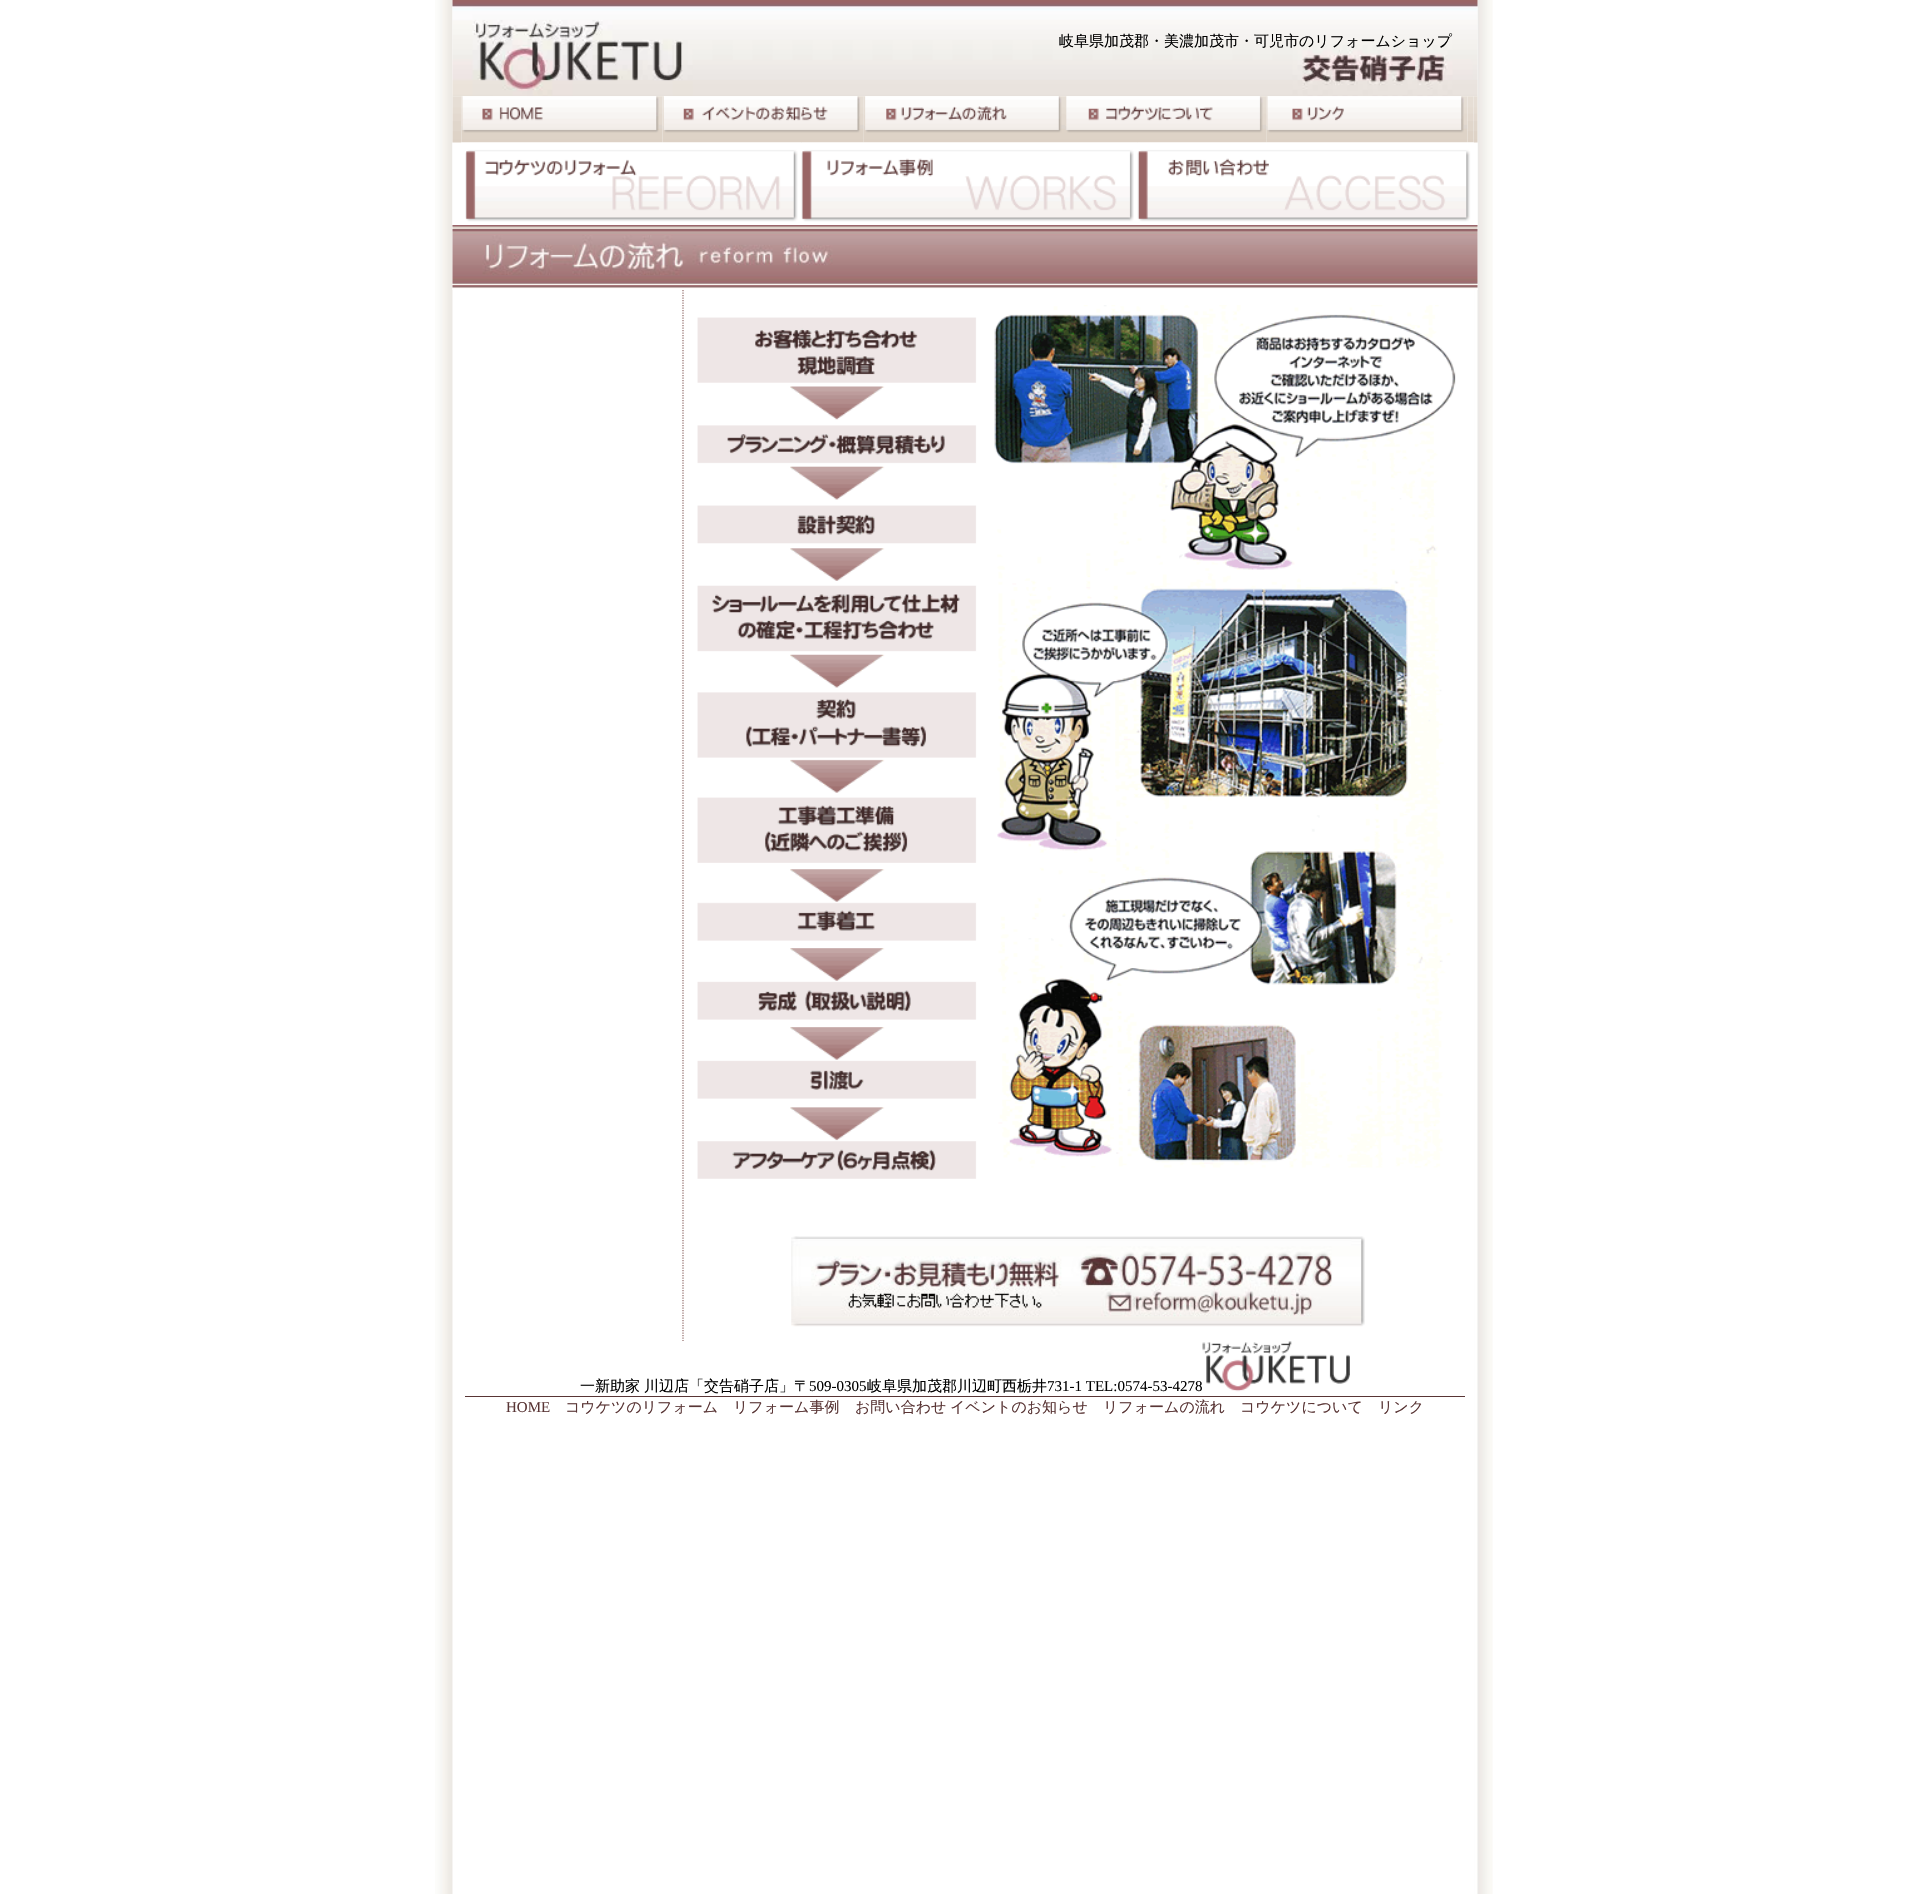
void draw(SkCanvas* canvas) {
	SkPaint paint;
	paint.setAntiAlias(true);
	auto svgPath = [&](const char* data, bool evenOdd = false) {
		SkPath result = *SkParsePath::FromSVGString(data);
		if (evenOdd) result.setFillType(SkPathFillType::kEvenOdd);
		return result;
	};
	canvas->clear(0xffffffff);
	canvas->drawImageRect(SkImages::DeferredFromEncodedData(SkData::MakeFromFileName("img1.png")), SkRect::MakeXYWH(435, 0, 1058, 1894), SkSamplingOptions());
	canvas->drawImageRect(SkImages::DeferredFromEncodedData(SkData::MakeFromFileName("img2.png")), SkRect::MakeXYWH(452, 0, 1026, 97), SkSamplingOptions());
	SkFont f1(fontMgr->matchFamilyStyle("WenQuanYi Zen Hei", SkFontStyle(500, SkFontStyle::kNormal_Width, SkFontStyle::kUpright_Slant)), 15);
	f1.setSubpixel(true);
	paint.setColor(0xff000000);
	canvas->drawString("岐阜県加茂郡・美濃加茂市・可児市のリフォームショップ", 1059, 46, f1, paint);
	canvas->drawImageRect(SkImages::DeferredFromEncodedData(SkData::MakeFromFileName("img3.png")), SkRect::MakeXYWH(452, 96, 9, 129), SkSamplingOptions());
	canvas->drawImageRect(SkImages::DeferredFromEncodedData(SkData::MakeFromFileName("img4.png")), SkRect::MakeXYWH(461, 96, 202, 47), SkSamplingOptions());
	canvas->drawImageRect(SkImages::DeferredFromEncodedData(SkData::MakeFromFileName("img5.png")), SkRect::MakeXYWH(662, 96, 202, 47), SkSamplingOptions());
	canvas->drawImageRect(SkImages::DeferredFromEncodedData(SkData::MakeFromFileName("img6.png")), SkRect::MakeXYWH(863, 96, 202, 47), SkSamplingOptions());
	canvas->drawImageRect(SkImages::DeferredFromEncodedData(SkData::MakeFromFileName("img7.png")), SkRect::MakeXYWH(1065, 96, 202, 47), SkSamplingOptions());
	canvas->drawImageRect(SkImages::DeferredFromEncodedData(SkData::MakeFromFileName("img8.png")), SkRect::MakeXYWH(1266, 96, 202, 47), SkSamplingOptions());
	canvas->drawImageRect(SkImages::DeferredFromEncodedData(SkData::MakeFromFileName("img9.png")), SkRect::MakeXYWH(1467, 96, 7, 47), SkSamplingOptions());
	canvas->drawImageRect(SkImages::DeferredFromEncodedData(SkData::MakeFromFileName("img10.png")), SkRect::MakeXYWH(461, 142, 4, 1), SkSamplingOptions());
	canvas->drawImageRect(SkImages::DeferredFromEncodedData(SkData::MakeFromFileName("img11.png")), SkRect::MakeXYWH(465, 142, 336, 80), SkSamplingOptions());
	canvas->drawImageRect(SkImages::DeferredFromEncodedData(SkData::MakeFromFileName("img12.png")), SkRect::MakeXYWH(801, 142, 337, 80), SkSamplingOptions());
	canvas->drawImageRect(SkImages::DeferredFromEncodedData(SkData::MakeFromFileName("img13.png")), SkRect::MakeXYWH(1137, 142, 337, 80), SkSamplingOptions());
	canvas->drawImageRect(SkImages::DeferredFromEncodedData(SkData::MakeFromFileName("img14.png")), SkRect::MakeXYWH(1474, 96, 4, 129), SkSamplingOptions());
	canvas->drawImageRect(SkImages::DeferredFromEncodedData(SkData::MakeFromFileName("img15.png")), SkRect::MakeXYWH(452, 225, 1026, 65), SkSamplingOptions());
	paint.setStroke(true);
	paint.setStrokeWidth(1.2);
	paint.setColor(0xff906a67);
	paint.setPathEffect(SkDashPathEffect::Make({{1.25f, 1.25f}}, 0));
	canvas->drawPath(svgPath("M683 290V1341"), paint);
	paint.setPathEffect(nullptr);
	canvas->drawImageRect(SkImages::DeferredFromEncodedData(SkData::MakeFromFileName("img16.png")), SkRect::MakeXYWH(697, 305, 759, 874), SkSamplingOptions());
	canvas->drawImageRect(SkImages::DeferredFromEncodedData(SkData::MakeFromFileName("img17.png")), SkRect::MakeXYWH(791, 1236, 574, 91), SkSamplingOptions());
	paint.setStroke(false);
	paint.setColor(0xff593535);
	canvas->drawRect(SkRect::MakeXYWH(465, 1396, 1000, 1), paint);
	paint.setColor(0xff000000);
	canvas->drawString("一新助家", 580, 1391, f1, paint);
	canvas->drawString("川辺店「交告硝子店」〒", 644, 1391, f1, paint);
	SkFont f2(fontMgr->matchFamilyStyle("Liberation Serif", SkFontStyle::Normal()), 15);
	f2.setSubpixel(true);
	canvas->drawString("509-0305", 809, 1391, f2, paint);
	canvas->drawString("岐阜県加茂郡川辺町西栃井", 867, 1391, f1, paint);
	canvas->drawString("731-1 TEL:0574-53-4278", 1047, 1391, f2, paint);
	canvas->drawImageRect(SkImages::DeferredFromEncodedData(SkData::MakeFromFileName("img18.png")), SkRect::MakeXYWH(1202, 1341, 148, 51), SkSamplingOptions());
	paint.setColor(0xff593535);
	canvas->drawString("HOME", 506, 1412, f2, paint);
	canvas->drawString("コウケツのリフォーム", 565, 1412, f1, paint);
	canvas->drawString("リフォーム事例", 733, 1412, f1, paint);
	canvas->drawString("お問い合わせ", 855, 1412, f1, paint);
	canvas->drawString("イベントのお知らせ", 950, 1412, f1, paint);
	canvas->drawString("リフォームの流れ", 1103, 1412, f1, paint);
	canvas->drawString("コウケツについて", 1240, 1412, f1, paint);
	canvas->drawString("リンク", 1378, 1412, f1, paint);
}
